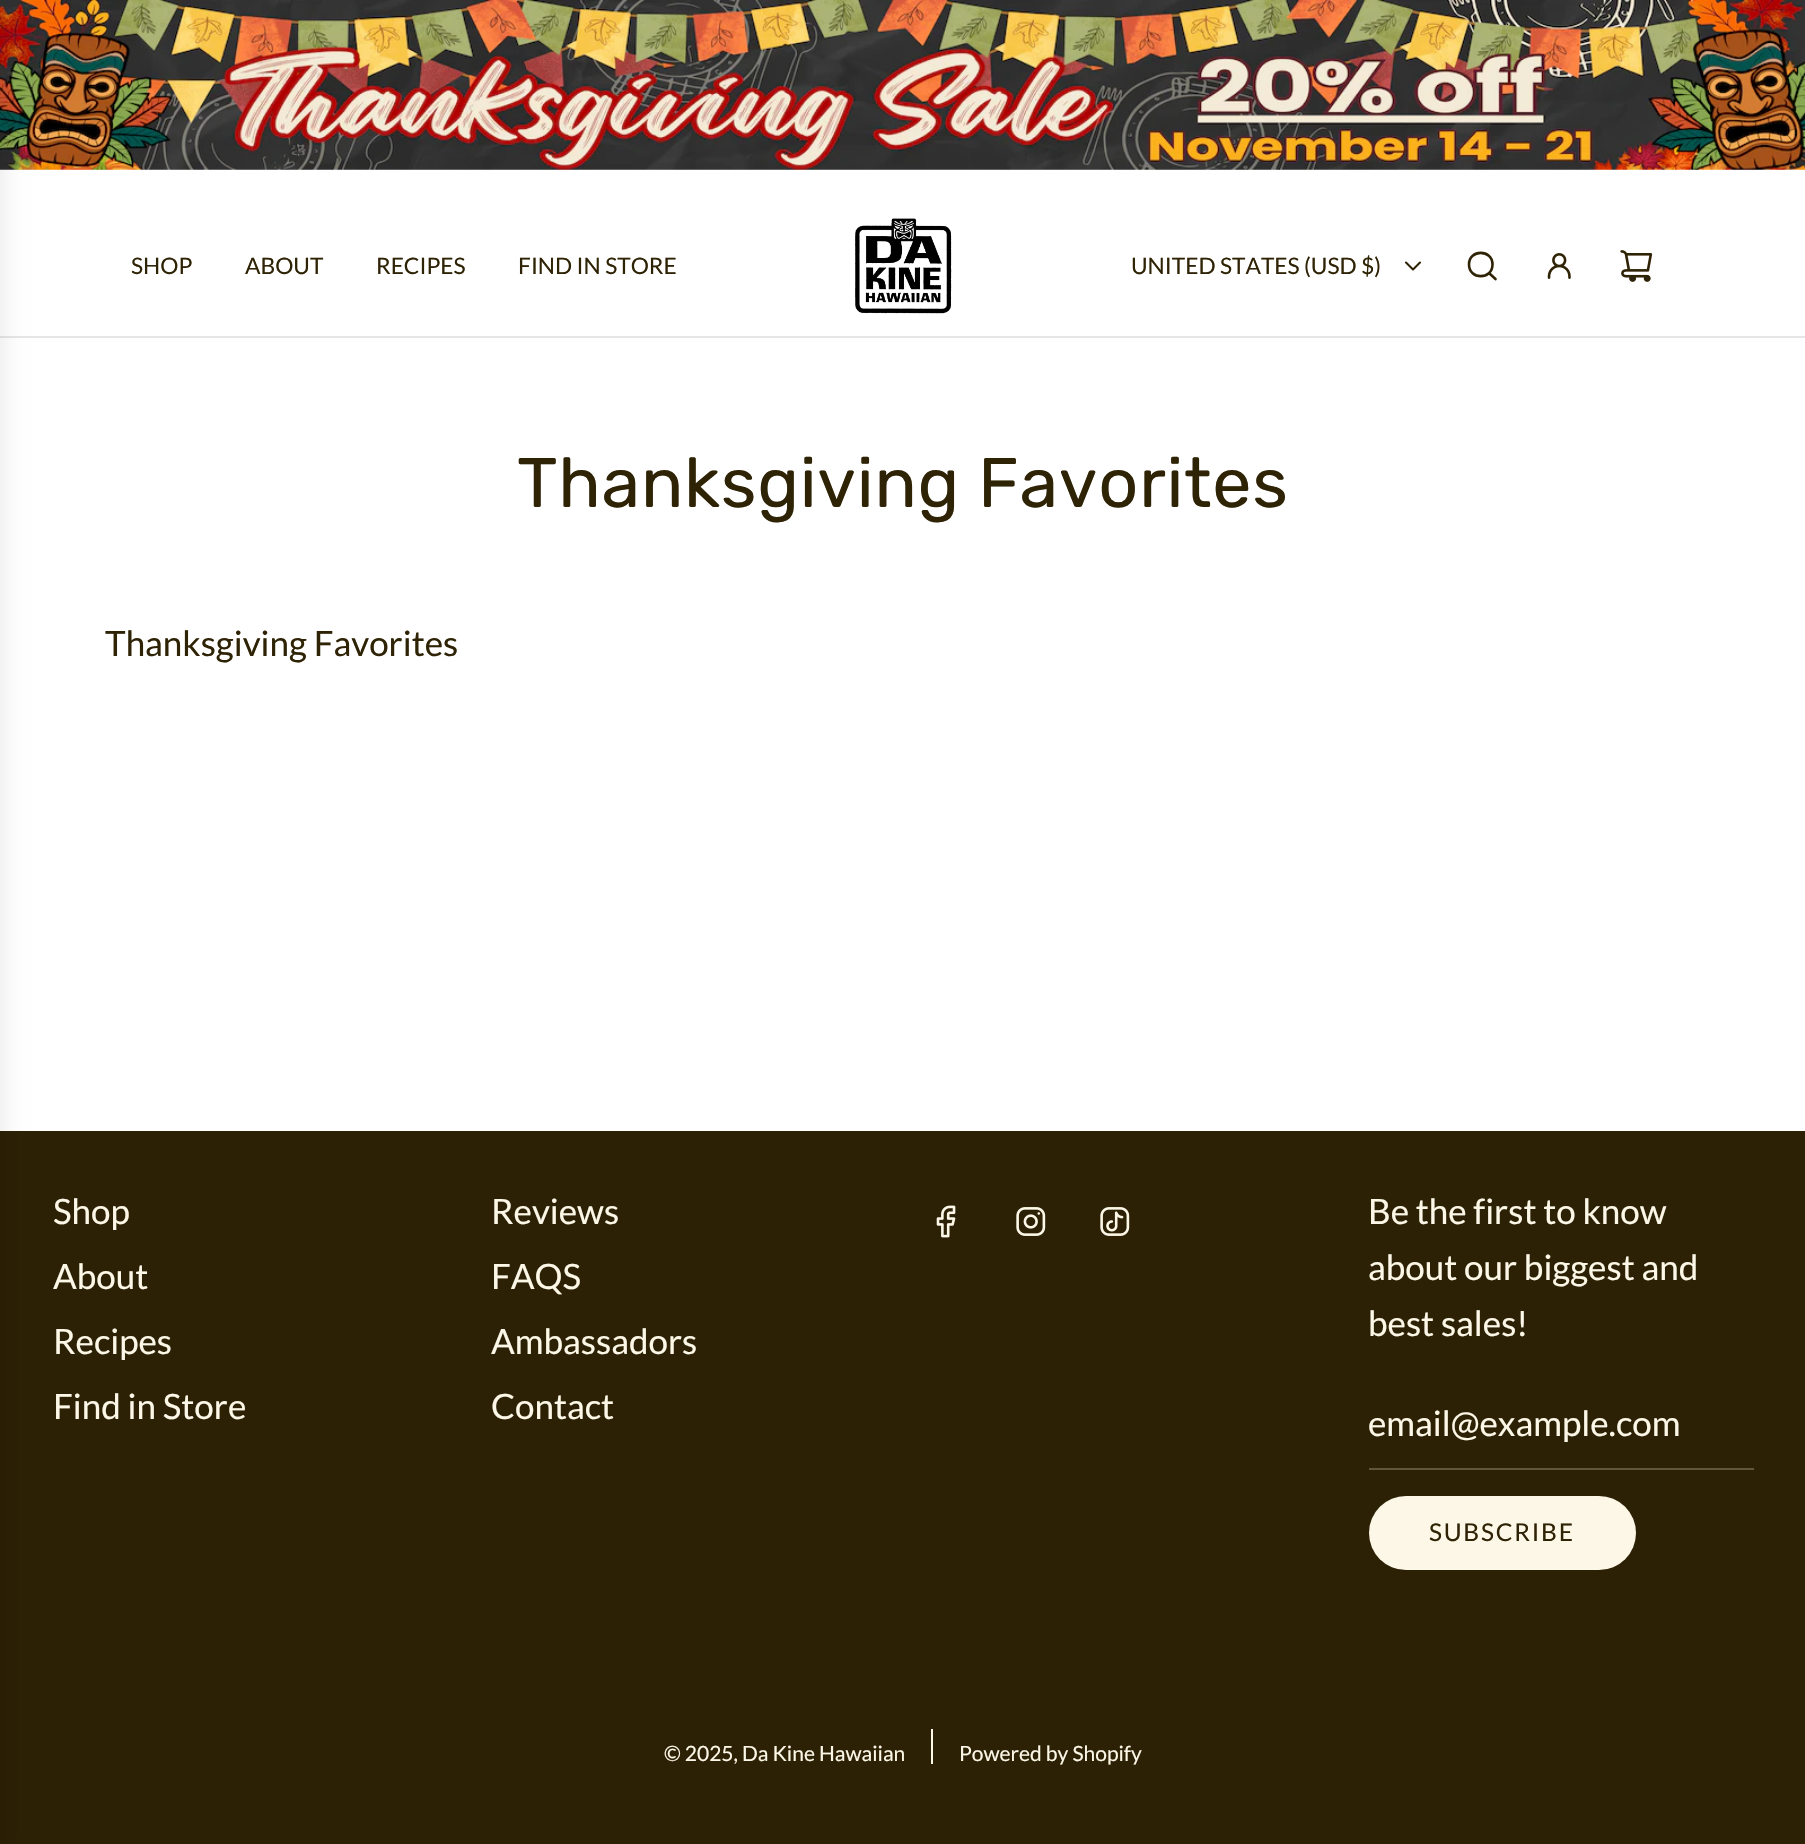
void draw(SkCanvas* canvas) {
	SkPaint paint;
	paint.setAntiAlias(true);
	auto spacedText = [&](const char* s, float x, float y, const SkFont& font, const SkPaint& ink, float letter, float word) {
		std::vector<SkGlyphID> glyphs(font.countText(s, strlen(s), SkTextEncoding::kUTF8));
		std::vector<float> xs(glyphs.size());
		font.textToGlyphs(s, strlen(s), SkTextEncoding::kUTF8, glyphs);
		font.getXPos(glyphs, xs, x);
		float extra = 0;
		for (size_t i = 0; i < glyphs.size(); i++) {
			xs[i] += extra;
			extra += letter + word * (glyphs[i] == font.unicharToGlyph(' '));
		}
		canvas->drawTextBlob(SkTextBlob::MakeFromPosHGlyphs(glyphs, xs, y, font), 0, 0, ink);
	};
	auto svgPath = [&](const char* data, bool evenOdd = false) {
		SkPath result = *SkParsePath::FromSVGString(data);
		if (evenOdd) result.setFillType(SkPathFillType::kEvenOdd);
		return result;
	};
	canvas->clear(0xffffffff);
	canvas->drawImageRect(SkImages::DeferredFromEncodedData(SkData::MakeFromFileName("img1.png")), SkRect::MakeXYWH(0, 0, 1805, 170), SkSamplingOptions());
	paint.setColor(0xffe6e5e7);
	canvas->drawRect(SkRect::MakeXYWH(0, 336, 1805, 2), paint);
	paint.setColor(0xff2c2005);
	canvas->drawRect(SkRect::MakeXYWH(0, 1131, 1805, 713), paint);
	paint.setColor(0x1a000000);
	paint.setMaskFilter(SkMaskFilter::MakeBlur(kNormal_SkBlurStyle, 13));
	canvas->drawRect(SkRect::MakeXYWH(-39, 9, 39, 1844), paint);
	paint.setMaskFilter(nullptr);
	SkFont f1(fontMgr->matchFamilyStyle("Lato", SkFontStyle::Normal()), 22.75);
	f1.setSubpixel(true);
	paint.setColor(0xff2f2306);
	canvas->drawString("SHOP", 131, 274, f1, paint);
	canvas->drawString("ABOUT", 245, 274, f1, paint);
	canvas->drawString("RECIPES", 376, 274, f1, paint);
	canvas->drawString("FIND IN STORE", 518, 274, f1, paint);
	canvas->drawImageRect(SkImages::DeferredFromEncodedData(SkData::MakeFromFileName("img2.png")), SkRect::MakeXYWH(855, 218, 97, 96), SkSamplingOptions());
	canvas->drawString("UNITED STATES (USD $)", 1131, 274, f1, paint);
	paint.setStroke(true);
	paint.setStrokeWidth(2.1);
	paint.setStrokeCap(SkPaint::kRound_Cap);
	paint.setStrokeJoin(SkPaint::kRound_Join);
	canvas->drawPath(svgPath("M1406 262.5L1413 269.5L1420 262.5"), paint);
	paint.setStrokeWidth(2.6);
	canvas->drawPath(svgPath("M1489.5 273.5L1495.5 279M1469 264.5C1469 280 1492.5 280 1492.5 264.5C1492.5 249 1469 249 1469 264.5Z"), paint);
	canvas->drawImageRect(SkImages::DeferredFromEncodedData(SkData::MakeFromFileName("img3.png")), SkRect::MakeXYWH(1547, 253, 24, 26), SkSamplingOptions());
	canvas->drawImageRect(SkImages::DeferredFromEncodedData(SkData::MakeFromFileName("img4.png")), SkRect::MakeXYWH(1620, 250, 33, 32), SkSamplingOptions());
	SkFont f2(fontMgr->matchFamilyStyle("Rubik", SkFontStyle::Normal()), 70);
	f2.setSubpixel(true);
	paint.setStroke(false);
	spacedText("Thanksgiving Favorites", 517, 507, f2, paint, 0.7, 0);
	SkFont f3(fontMgr->matchFamilyStyle("Lato", SkFontStyle::Normal()), 35);
	f3.setSubpixel(true);
	canvas->drawString("Thanksgiving Favorites", 105, 656, f3, paint);
	paint.setColor(0xfffcf7e6);
	canvas->drawString("Shop", 53, 1224, f3, paint);
	canvas->drawString("About", 53, 1289, f3, paint);
	canvas->drawString("Recipes", 53, 1354, f3, paint);
	canvas->drawString("Find in Store", 53, 1419, f3, paint);
	canvas->drawString("Reviews", 491, 1224, f3, paint);
	canvas->drawString("FAQS", 491, 1289, f3, paint);
	canvas->drawString("Ambassadors", 491, 1354, f3, paint);
	canvas->drawString("Contact", 491, 1419, f3, paint);
	canvas->drawImageRect(SkImages::DeferredFromEncodedData(SkData::MakeFromFileName("img5.png")), SkRect::MakeXYWH(936, 1205, 20, 33), SkSamplingOptions());
	canvas->drawImageRect(SkImages::DeferredFromEncodedData(SkData::MakeFromFileName("img6.png")), SkRect::MakeXYWH(1016, 1207, 30, 29), SkSamplingOptions());
	canvas->drawImageRect(SkImages::DeferredFromEncodedData(SkData::MakeFromFileName("img7.png")), SkRect::MakeXYWH(1100, 1207, 30, 29), SkSamplingOptions());
	canvas->drawString("Be the first to know", 1368, 1224, f3, paint);
	canvas->drawString("about our biggest and", 1368, 1280, f3, paint);
	canvas->drawString("best sales!", 1368, 1336, f3, paint);
	paint.setColor(0xff60563d);
	canvas->drawRect(SkRect::MakeXYWH(1369, 1468, 385, 2), paint);
	paint.setColor(0xfffcf7e6);
	canvas->drawString("email@example.com", 1368, 1436, f3, paint);
	canvas->drawRoundRect(SkRect::MakeXYWH(1369, 1496, 267, 74), 37, 37, paint);
	SkFont f4(fontMgr->matchFamilyStyle("Lato", SkFontStyle::Normal()), 24.5);
	f4.setSubpixel(true);
	paint.setColor(0xff2f2306);
	spacedText("SUBSCRIBE", 1429, 1541, f4, paint, 1.75, 0);
	SkFont f5(fontMgr->matchFamilyStyle("Lato", SkFontStyle::Normal()), 21);
	f5.setSubpixel(true);
	paint.setColor(0xfffcf7e6);
	canvas->drawString("© 2025, Da Kine Hawaiian", 664, 1761, f5, paint);
	canvas->drawRect(SkRect::MakeXYWH(931, 1729, 2, 35), paint);
	canvas->drawString("Powered by Shopify", 959, 1761, f5, paint);
}
